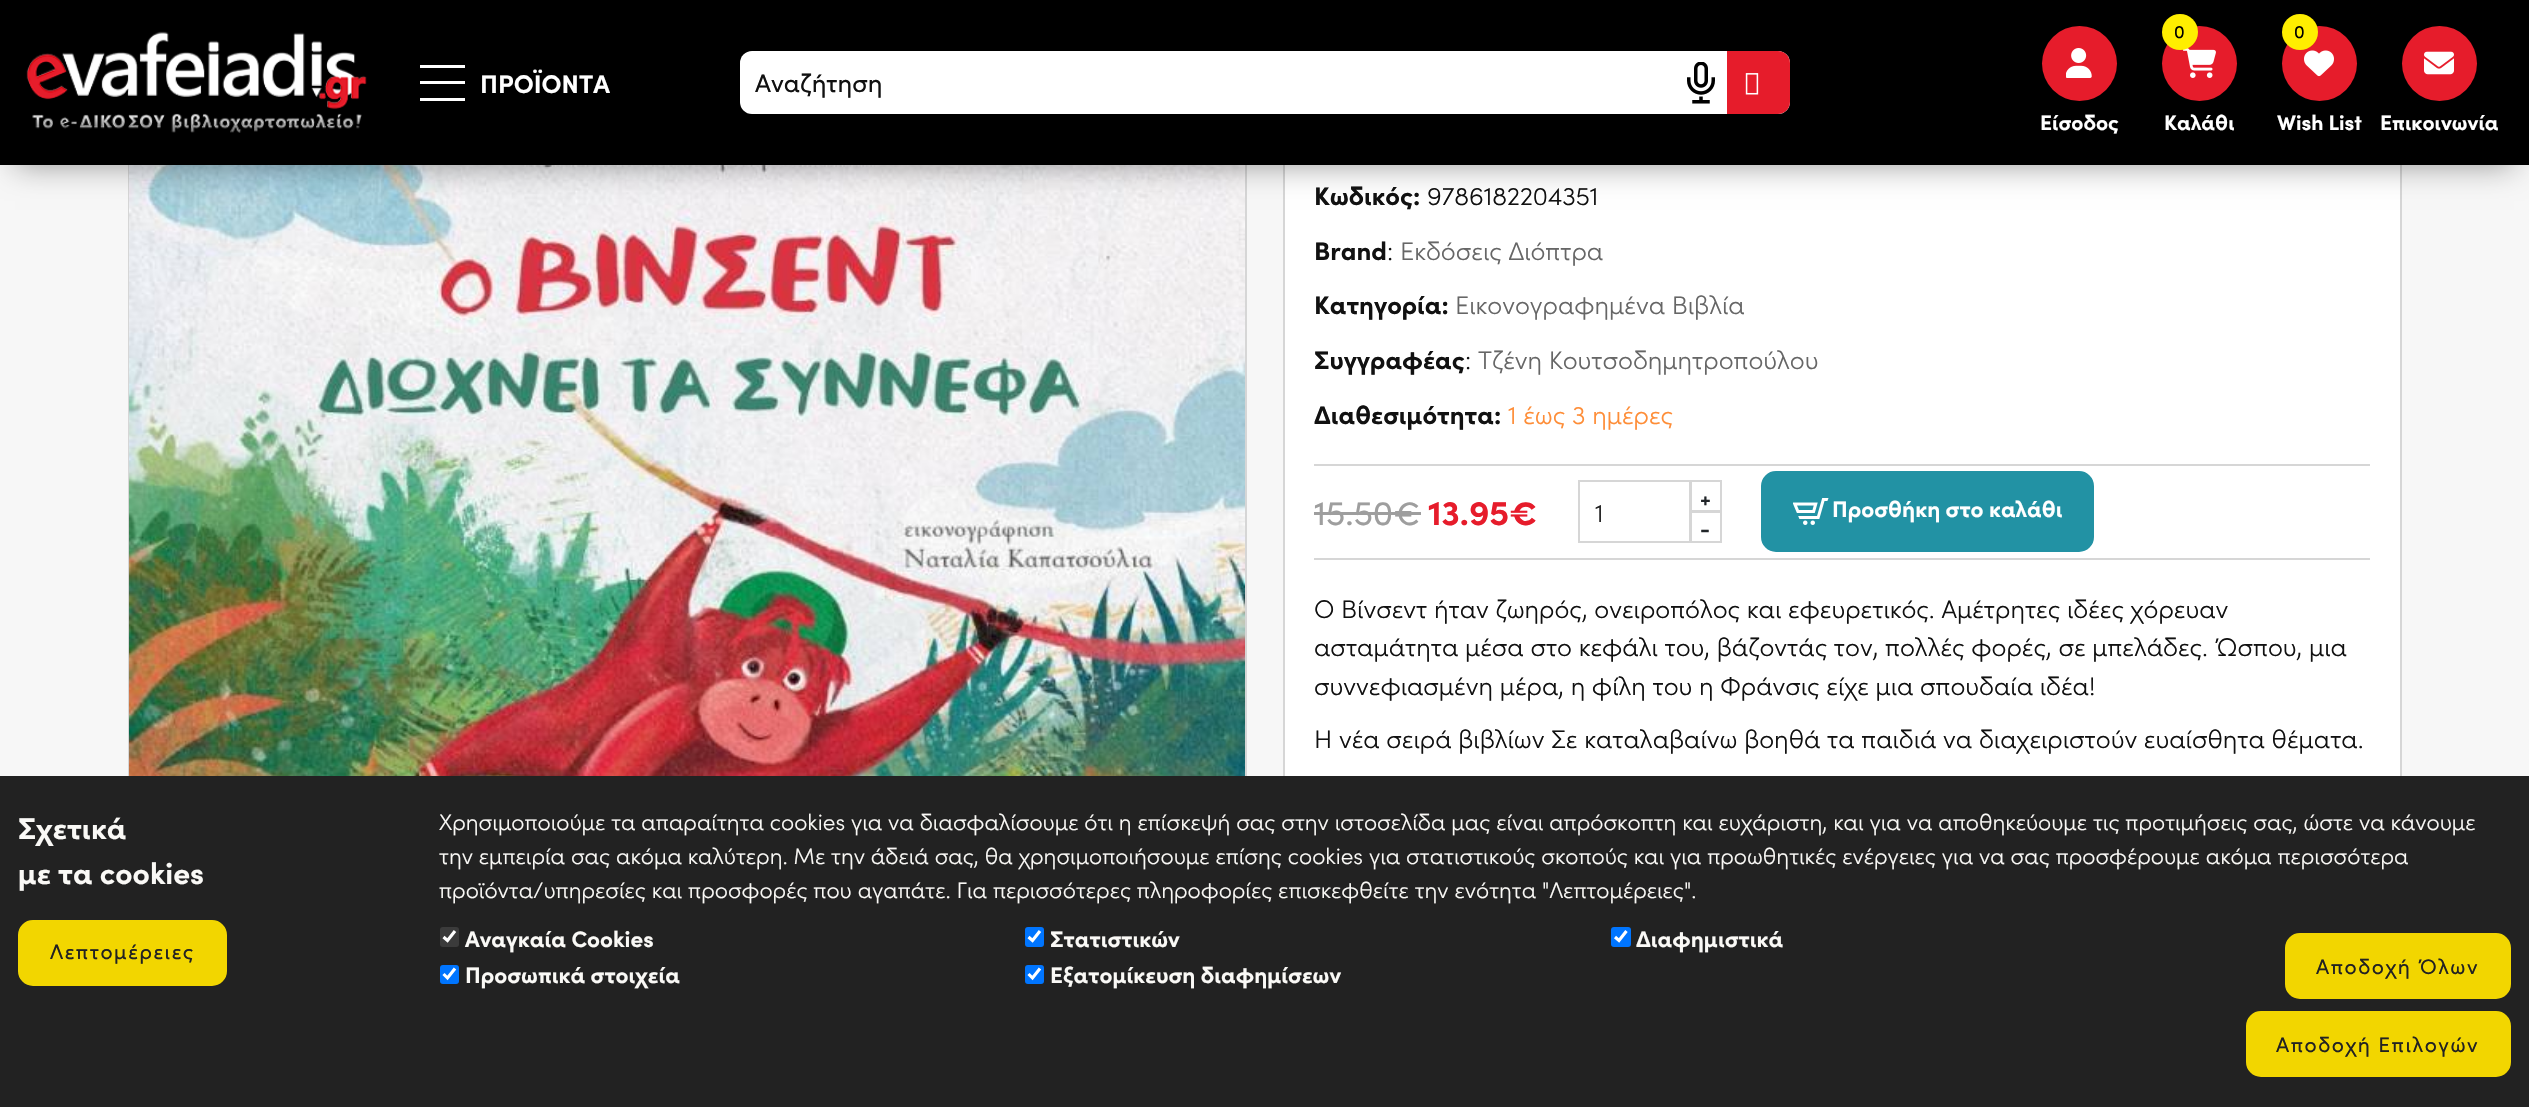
void draw(SkCanvas* canvas) {
	SkPaint paint;
	paint.setAntiAlias(true);
	auto spacedText = [&](const char* s, float x, float y, const SkFont& font, const SkPaint& ink, float letter, float word) {
		std::vector<SkGlyphID> glyphs(font.countText(s, strlen(s), SkTextEncoding::kUTF8));
		std::vector<float> xs(glyphs.size());
		font.textToGlyphs(s, strlen(s), SkTextEncoding::kUTF8, glyphs);
		font.getXPos(glyphs, xs, x);
		float extra = 0;
		for (size_t i = 0; i < glyphs.size(); i++) {
			xs[i] += extra;
			extra += letter + word * (glyphs[i] == font.unicharToGlyph(' '));
		}
		canvas->drawTextBlob(SkTextBlob::MakeFromPosHGlyphs(glyphs, xs, y, font), 0, 0, ink);
	};
	auto svgPath = [&](const char* data, bool evenOdd = false) {
		SkPath result = *SkParsePath::FromSVGString(data);
		if (evenOdd) result.setFillType(SkPathFillType::kEvenOdd);
		return result;
	};
	canvas->clear(0xfff7f7f7);
	paint.setStroke(true);
	paint.setStrokeWidth(2);
	paint.setColor(0xffd6d6d6);
	canvas->drawRect(SkRect::MakeXYWH(129, 78, 1117, 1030), paint);
	canvas->drawImageRect(SkImages::DeferredFromEncodedData(SkData::MakeFromFileName("img8.png")), SkRect::MakeXYWH(129, 165, 1116, 611), SkSamplingOptions());
	paint.setStroke(false);
	paint.setColor(0xffffffff);
	canvas->drawRect(SkRect::MakeXYWH(1285, 165, 1115, 611), paint);
	paint.setStroke(true);
	paint.setColor(0xffd6d6d6);
	canvas->drawRect(SkRect::MakeXYWH(1284, 78, 1117, 905), paint);
	paint.setStroke(false);
	paint.setColor(0x66000000);
	paint.setMaskFilter(SkMaskFilter::MakeBlur(kNormal_SkBlurStyle, 15));
	canvas->drawRect(SkRect::MakeXYWH(15, 30, 2499, 135), paint);
	paint.setMaskFilter(nullptr);
	paint.setColor(0xff000000);
	canvas->drawRect(SkRect::MakeXYWH(0, 0, 2529, 165), paint);
	canvas->drawImageRect(SkImages::DeferredFromEncodedData(SkData::MakeFromFileName("img1.png")), SkRect::MakeXYWH(26, 31, 341, 102), SkSamplingOptions());
	paint.setColor(0xffffffff);
	canvas->drawRect(SkRect::MakeXYWH(420, 65, 45, 3), paint);
	canvas->drawRect(SkRect::MakeXYWH(420, 81, 45, 3), paint);
	canvas->drawRect(SkRect::MakeXYWH(420, 98, 45, 3), paint);
	SkFont f1(fontMgr->matchFamilyStyle("Sofia", SkFontStyle::Bold()), 25.5);
	f1.setSubpixel(true);
	canvas->drawString("ΠΡΟΪΟΝΤΑ", 480, 93, f1, paint);
	canvas->drawRoundRect(SkRect::MakeXYWH(740, 51, 1050, 63), 12, 12, paint);
	SkFont f2(fontMgr->matchFamilyStyle("Sofia", SkFontStyle::Normal()), 25.5);
	f2.setSubpixel(true);
	paint.setColor(0xff111111);
	canvas->drawString("Αναζήτηση", 755, 92, f2, paint);
	canvas->drawImageRect(SkImages::DeferredFromEncodedData(SkData::MakeFromFileName("img2.png")), SkRect::MakeXYWH(1687, 62, 28, 42), SkSamplingOptions());
	paint.setColor(0xffe61c2b);
	canvas->drawPath(svgPath("M1727 51H1778C1784.5 51 1790 56.5 1790 63V102C1790 108.5 1784.5 114 1778 114H1727Z"), paint);
	canvas->drawImageRect(SkImages::DeferredFromEncodedData(SkData::MakeFromFileName("img3.png")), SkRect::MakeXYWH(1745, 73, 14, 22), SkSamplingOptions());
	canvas->drawCircle(2079.5, 63.5, 37.5, paint);
	canvas->drawImageRect(SkImages::DeferredFromEncodedData(SkData::MakeFromFileName("img4.png")), SkRect::MakeXYWH(2066, 48, 26, 30), SkSamplingOptions());
	SkFont f3(fontMgr->matchFamilyStyle("Sofia", SkFontStyle::Bold()), 21);
	f3.setSubpixel(true);
	paint.setColor(0xffffffff);
	canvas->drawString("Είσοδος", 2040, 130, f3, paint);
	paint.setColor(0xffe61c2b);
	canvas->drawCircle(2199.5, 63.5, 37.5, paint);
	canvas->drawImageRect(SkImages::DeferredFromEncodedData(SkData::MakeFromFileName("img5.png")), SkRect::MakeXYWH(2183, 48, 33, 30), SkSamplingOptions());
	paint.setColor(0xffffee00);
	canvas->drawCircle(2180, 32, 18, paint);
	SkFont f4(fontMgr->matchFamilyStyle("Sofia", SkFontStyle::Normal()), 18);
	f4.setSubpixel(true);
	paint.setColor(0xff000000);
	canvas->drawString("0", 2174, 38, f4, paint);
	paint.setColor(0xffffffff);
	canvas->drawString("Καλάθι", 2164, 130, f3, paint);
	paint.setColor(0xffe61c2b);
	canvas->drawCircle(2319.5, 63.5, 37.5, paint);
	paint.setColor(0xffffee00);
	canvas->drawCircle(2300, 32, 18, paint);
	paint.setColor(0xff000000);
	canvas->drawString("0", 2294, 38, f4, paint);
	canvas->drawImageRect(SkImages::DeferredFromEncodedData(SkData::MakeFromFileName("img6.png")), SkRect::MakeXYWH(2304, 50, 30, 27), SkSamplingOptions());
	paint.setColor(0xffffffff);
	canvas->drawString("Wish List", 2277, 130, f3, paint);
	paint.setColor(0xffe61c2b);
	canvas->drawCircle(2439.5, 63.5, 37.5, paint);
	canvas->drawImageRect(SkImages::DeferredFromEncodedData(SkData::MakeFromFileName("img7.png")), SkRect::MakeXYWH(2424, 51, 30, 24), SkSamplingOptions());
	paint.setColor(0xffffffff);
	canvas->drawString("Επικοινωνία", 2380, 130, f3, paint);
	paint.setColor(0xff111111);
	canvas->drawString("Κωδικός:", 1314, 205, f1, paint);
	SkFont f5(fontMgr->matchFamilyStyle("Sofia", SkFontStyle(300, SkFontStyle::kNormal_Width, SkFontStyle::kUpright_Slant)), 25.5);
	f5.setSubpixel(true);
	canvas->drawString("9786182204351", 1427, 205, f5, paint);
	canvas->drawString("Brand", 1314, 260, f1, paint);
	canvas->drawString(":", 1387, 260, f5, paint);
	paint.setColor(0xff666666);
	canvas->drawString("Εκδόσεις Διόπτρα", 1400, 260, f5, paint);
	paint.setColor(0xff111111);
	canvas->drawString("Κατηγορία:", 1314, 314, f1, paint);
	paint.setColor(0xff666666);
	canvas->drawString("Εικονογραφημένα Βιβλία", 1455, 314, f5, paint);
	paint.setColor(0xff111111);
	canvas->drawString("Συγγραφέας", 1314, 369, f1, paint);
	canvas->drawString(":", 1465, 369, f5, paint);
	paint.setColor(0xff666666);
	canvas->drawString("Τζένη Κουτσοδημητροπούλου", 1478, 369, f5, paint);
	paint.setColor(0xff111111);
	canvas->drawString("Διαθεσιμότητα:", 1314, 424, f1, paint);
	paint.setColor(0xfffe8d37);
	canvas->drawString("1 έως 3 ημέρες", 1508, 424, f5, paint);
	paint.setColor(0xffd6d6d6);
	canvas->drawRect(SkRect::MakeXYWH(1314, 464, 1056, 2), paint);
	SkFont f6(fontMgr->matchFamilyStyle("Sofia", SkFontStyle::Normal()), 34.5);
	f6.setSubpixel(true);
	paint.setColor(0xff9e9e9e);
	canvas->drawString("15.50€", 1314, 525, f6, paint);
	canvas->drawRect(SkRect::MakeXYWH(1314, 512, 107, 3), paint);
	SkFont f7(fontMgr->matchFamilyStyle("Sofia", SkFontStyle::Bold()), 34.5);
	f7.setSubpixel(true);
	paint.setColor(0xffe61c2b);
	canvas->drawString("13.95€", 1428, 525, f7, paint);
	paint.setStroke(true);
	paint.setColor(0xffd6d6d6);
	canvas->drawRect(SkRect::MakeXYWH(1579, 481, 112, 61), paint);
	paint.setStroke(false);
	paint.setColor(0xff222222);
	canvas->drawString("1", 1595, 522, f5, paint);
	paint.setStroke(true);
	paint.setColor(0xffd6d6d6);
	canvas->drawRect(SkRect::MakeXYWH(1690, 481, 31, 31), paint);
	paint.setStroke(false);
	paint.setColor(0xff212529);
	canvas->drawString("+", 1700, 506, f3, paint);
	paint.setStroke(true);
	paint.setColor(0xffd6d6d6);
	canvas->drawRect(SkRect::MakeXYWH(1690, 511, 31, 31), paint);
	paint.setStroke(false);
	paint.setColor(0xff212529);
	canvas->drawString("-", 1700, 536, f3, paint);
	paint.setColor(0xff2292a4);
	canvas->drawRoundRect(SkRect::MakeXYWH(1762, 472, 331, 79), 14, 14, paint);
	paint.setStroke(true);
	canvas->drawRoundRect(SkRect::MakeXYWH(1762, 472, 331, 79), 14, 14, paint);
	canvas->drawImageRect(SkImages::DeferredFromEncodedData(SkData::MakeFromFileName("img9.png")), SkRect::MakeXYWH(1793, 498, 36, 27), SkSamplingOptions());
	SkFont f8(fontMgr->matchFamilyStyle("Sofia", SkFontStyle::Bold()), 22.5);
	f8.setSubpixel(true);
	paint.setStroke(false);
	paint.setColor(0xffffffff);
	canvas->drawString("Προσθήκη στο καλάθι", 1832, 517, f8, paint);
	paint.setColor(0xffd6d6d6);
	canvas->drawRect(SkRect::MakeXYWH(1314, 558, 1056, 2), paint);
	paint.setColor(0xff111111);
	canvas->drawString("Ο Βίνσεντ ήταν ζωηρός, ονειροπόλος και εφευρετικός. Αμέτρητες ιδέες χόρευαν", 1314, 618, f5, paint);
	canvas->drawString("ασταμάτητα μέσα στο κεφάλι του, βάζοντάς τον, πολλές φορές, σε μπελάδες. Ώσπου, μια", 1314, 656, f5, paint);
	canvas->drawString("συννεφιασμένη μέρα, η φίλη του η Φράνσις είχε μια σπουδαία ιδέα!", 1314, 695, f5, paint);
	canvas->drawString("Η νέα σειρά βιβλίων Σε καταλαβαίνω βοηθά τα παιδιά να διαχειριστούν ευαίσθητα θέματα.", 1314, 748, f5, paint);
	paint.setColor(0xff222222);
	canvas->drawRect(SkRect::MakeXYWH(0, 776, 2529, 331), paint);
	SkFont f9(fontMgr->matchFamilyStyle("Sofia", SkFontStyle::Bold()), 30);
	f9.setSubpixel(true);
	paint.setColor(0xfffaf9f6);
	canvas->drawString("Σχετικά", 18, 839, f9, paint);
	canvas->drawString("με τα cookies", 18, 884, f9, paint);
	paint.setColor(0xfff2d600);
	canvas->drawRoundRect(SkRect::MakeXYWH(19, 921, 207, 64), 14, 14, paint);
	paint.setStroke(true);
	canvas->drawRoundRect(SkRect::MakeXYWH(19, 921, 207, 64), 14, 14, paint);
	SkFont f10(fontMgr->matchFamilyStyle("Sofia", SkFontStyle::Normal()), 21);
	f10.setSubpixel(true);
	paint.setStroke(false);
	paint.setColor(0xff222222);
	spacedText("Λεπτομέρειες", 50, 959, f10, paint, 1.5, 0);
	SkFont f11(fontMgr->matchFamilyStyle("Sofia", SkFontStyle(300, SkFontStyle::kNormal_Width, SkFontStyle::kUpright_Slant)), 22.5);
	f11.setSubpixel(true);
	paint.setColor(0xfffaf9f6);
	canvas->drawString("Χρησιμοποιούμε τα απαραίτητα cookies για να διασφαλίσουμε ότι η επίσκεψή σας στην ιστοσελίδα μας είναι απρόσκοπτη και ευχάριστη, και για να αποθηκεύουμε τις προτιμήσεις σας, ώστε να κάνουμε", 439, 830, f11, paint);
	canvas->drawString("την εμπειρία σας ακόμα καλύτερη. Με την άδειά σας, θα χρησιμοποιήσουμε επίσης cookies για στατιστικούς σκοπούς και για προωθητικές ενέργειες για να σας προσφέρουμε ακόμα περισσότερα", 439, 864, f11, paint);
	canvas->drawString("προϊόντα/υπηρεσίες και προσφορές που αγαπάτε. Για περισσότερες πληροφορίες επισκεφθείτε την ενότητα \"Λεπτομέρειες\".", 439, 898, f11, paint);
	paint.setColor(0xff3b3b3b);
	canvas->drawRoundRect(SkRect::MakeXYWH(440, 927, 19, 20), 3, 3, paint);
	paint.setStroke(true);
	paint.setStrokeWidth(3.1);
	paint.setColor(0xffffffff);
	canvas->drawPath(svgPath("M443.5 937L447.5 940.5L455 931"), paint);
	paint.setStroke(false);
	paint.setColor(0xfffaf9f6);
	canvas->drawString("Αναγκαία Cookies", 465, 947, f8, paint);
	paint.setColor(0xff0075ff);
	canvas->drawRoundRect(SkRect::MakeXYWH(1025, 927, 19, 20), 3, 3, paint);
	paint.setStroke(true);
	paint.setColor(0xffffffff);
	canvas->drawPath(svgPath("M1028.5 937L1032.5 940.5L1040 931"), paint);
	paint.setStroke(false);
	paint.setColor(0xfffaf9f6);
	canvas->drawString("Στατιστικών", 1050, 947, f8, paint);
	paint.setColor(0xff0075ff);
	canvas->drawRoundRect(SkRect::MakeXYWH(1611, 927, 20, 20), 3, 3, paint);
	paint.setStroke(true);
	paint.setColor(0xffffffff);
	canvas->drawPath(svgPath("M1615 937L1619 940.5L1626.5 931"), paint);
	paint.setStroke(false);
	paint.setColor(0xfffaf9f6);
	canvas->drawString("Διαφημιστικά", 1636, 947, f8, paint);
	paint.setColor(0xff0075ff);
	canvas->drawRoundRect(SkRect::MakeXYWH(440, 965, 19, 19), 3, 3, paint);
	paint.setStroke(true);
	paint.setColor(0xffffffff);
	canvas->drawPath(svgPath("M443.5 974L447.5 978L455 968.5"), paint);
	paint.setStroke(false);
	paint.setColor(0xfffaf9f6);
	canvas->drawString("Προσωπικά στοιχεία", 465, 983, f8, paint);
	paint.setColor(0xff0075ff);
	canvas->drawRoundRect(SkRect::MakeXYWH(1025, 965, 19, 19), 3, 3, paint);
	paint.setStroke(true);
	paint.setColor(0xffffffff);
	canvas->drawPath(svgPath("M1028.5 974L1032.5 978L1040 968.5"), paint);
	paint.setStroke(false);
	paint.setColor(0xfffaf9f6);
	canvas->drawString("Εξατομίκευση διαφημίσεων", 1050, 983, f8, paint);
	paint.setColor(0xfff2d600);
	canvas->drawRoundRect(SkRect::MakeXYWH(2286, 934, 224, 64), 14, 14, paint);
	paint.setStroke(true);
	paint.setStrokeWidth(2);
	canvas->drawRoundRect(SkRect::MakeXYWH(2286, 934, 224, 64), 14, 14, paint);
	paint.setStroke(false);
	paint.setColor(0xff222222);
	spacedText("Αποδοχή Όλων", 2316, 974, f10, paint, 1.5, 0);
	paint.setColor(0xfff2d600);
	canvas->drawRoundRect(SkRect::MakeXYWH(2247, 1012, 263, 64), 14, 14, paint);
	paint.setStroke(true);
	canvas->drawRoundRect(SkRect::MakeXYWH(2247, 1012, 263, 64), 14, 14, paint);
	paint.setStroke(false);
	paint.setColor(0xff222222);
	spacedText("Αποδοχή Επιλογών", 2276, 1052, f10, paint, 1.5, 0);
}
